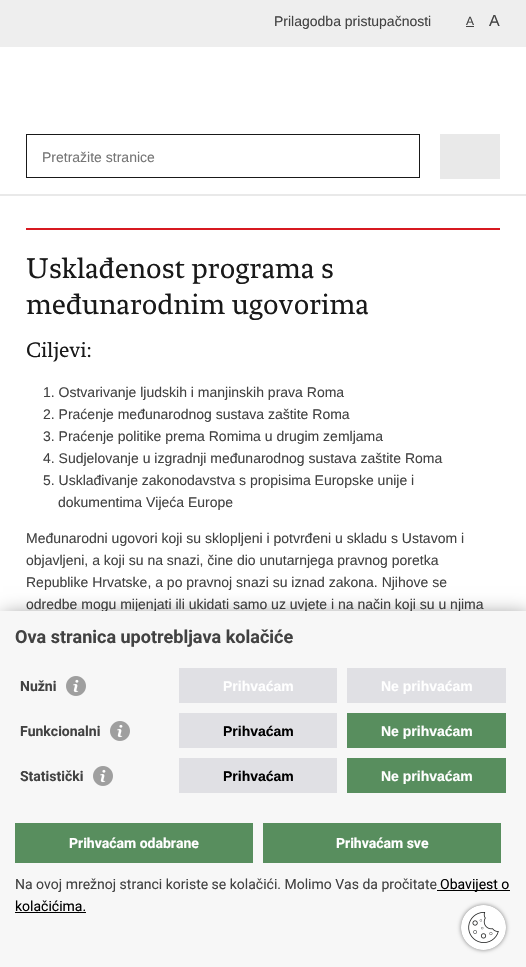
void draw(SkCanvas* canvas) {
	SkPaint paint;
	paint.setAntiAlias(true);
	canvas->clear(0xffffffff);
	paint.setColor(0xffe9e9e9);
	canvas->drawRect(SkRect::MakeXYWH(0, 194, 526, 2), paint);
	paint.setColor(0xffeeeeee);
	canvas->drawRect(SkRect::MakeXYWH(0, 0, 526, 47), paint);
	SkFont f1(fontMgr->matchFamilyStyle("Liberation Sans", SkFontStyle::Normal()), 14);
	f1.setSubpixel(true);
	paint.setColor(0xff424242);
	canvas->drawString("Prilagodba pristupačnosti", 274, 26, f1, paint);
	SkFont f2(fontMgr->matchFamilyStyle("Liberation Sans", SkFontStyle::Normal()), 12);
	f2.setSubpixel(true);
	canvas->drawString("A", 466, 25, f2, paint);
	canvas->drawRect(SkRect::MakeXYWH(466, 26, 8, 1), paint);
	SkFont f3(fontMgr->matchFamilyStyle("Liberation Sans", SkFontStyle::Normal()), 16);
	f3.setSubpixel(true);
	canvas->drawString("A", 489, 26, f3, paint);
	paint.setStroke(true);
	paint.setStrokeWidth(1);
	paint.setColor(0xff191919);
	canvas->drawRect(SkRect::MakeXYWH(26.5, 134.5, 393, 43), paint);
	paint.setStroke(false);
	paint.setColor(0xff757575);
	canvas->drawString("Pretražite stranice", 42, 162, f1, paint);
	paint.setColor(0xffe9e9e9);
	canvas->drawRect(SkRect::MakeXYWH(440, 134, 60, 45), paint);
	paint.setColor(0xffd71920);
	canvas->drawRect(SkRect::MakeXYWH(26, 228, 474, 2), paint);
	SkFont f4(fontMgr->matchFamilyStyle("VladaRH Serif", SkFontStyle::Normal()), 30);
	f4.setSubpixel(true);
	paint.setColor(0xff191919);
	canvas->drawString("Usklađenost programa s", 26, 278, f4, paint);
	canvas->drawString("međunarodnim ugovorima", 26, 314, f4, paint);
	SkFont f5(fontMgr->matchFamilyStyle("VladaRH Serif", SkFontStyle::Normal()), 22);
	f5.setSubpixel(true);
	canvas->drawString("Ciljevi:", 26, 357, f5, paint);
	paint.setColor(0xff424242);
	canvas->drawString("1. Ostvarivanje ljudskih i manjinskih prava Roma", 43, 397, f1, paint);
	canvas->drawString("2. Praćenje međunarodnog sustava zaštite Roma", 43, 419, f1, paint);
	canvas->drawString("3. Praćenje politike prema Romima u drugim zemljama", 43, 441, f1, paint);
	canvas->drawString("4. Sudjelovanje u izgradnji međunarodnog sustava zaštite Roma", 43, 463, f1, paint);
	canvas->drawString("5. Usklađivanje zakonodavstva s propisima Europske unije i", 43, 485, f1, paint);
	canvas->drawString("dokumentima Vijeća Europe", 58, 507, f1, paint);
	canvas->drawString("Međunarodni ugovori koji su sklopljeni i potvrđeni u skladu s Ustavom i", 26, 543, f1, paint);
	canvas->drawString("objavljeni, a koji su na snazi, čine dio unutarnjega pravnog poretka", 26, 565, f1, paint);
	canvas->drawString("Republike Hrvatske, a po pravnoj snazi su iznad zakona. Njihove se", 26, 587, f1, paint);
	canvas->drawString("odredbe mogu mijenjati ili ukidati samo uz uvjete i na način koji su u njima", 26, 609, f1, paint);
	paint.setColor(0x80000000);
	paint.setMaskFilter(SkMaskFilter::MakeBlur(kNormal_SkBlurStyle, 10));
	canvas->drawRect(SkRect::MakeXYWH(3, 616, 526, 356), paint);
	paint.setMaskFilter(nullptr);
	paint.setColor(0xfff7f7f7);
	canvas->drawRect(SkRect::MakeXYWH(0, 611, 526, 356), paint);
	SkFont f6(fontMgr->matchFamilyStyle("Roboto", SkFontStyle::Bold()), 18);
	f6.setSubpixel(true);
	paint.setColor(0xff424242);
	canvas->drawString("Ova stranica upotrebljava kolačiće", 15, 643, f6, paint);
	SkFont f7(fontMgr->matchFamilyStyle("Roboto", SkFontStyle::Bold()), 14);
	f7.setSubpixel(true);
	canvas->drawString("Nužni", 20, 691, f7, paint);
	canvas->drawImageRect(SkImages::DeferredFromEncodedData(SkData::MakeFromFileName("img1.png")), SkRect::MakeXYWH(66, 676, 20, 20), SkSamplingOptions());
	paint.setColor(0xffe0e0e4);
	canvas->drawRect(SkRect::MakeXYWH(179, 668, 158, 35), paint);
	SkFont f8(fontMgr->matchFamilyStyle("Liberation Sans", SkFontStyle::Bold()), 14);
	f8.setSubpixel(true);
	paint.setColor(0xffffffff);
	canvas->drawString("Prihvaćam", 223, 691, f8, paint);
	paint.setColor(0xffe0e0e4);
	canvas->drawRect(SkRect::MakeXYWH(347, 668, 159, 35), paint);
	paint.setColor(0xffffffff);
	canvas->drawString("Ne prihvaćam", 381, 691, f8, paint);
	paint.setColor(0xff424242);
	canvas->drawString("Funkcionalni", 20, 736, f7, paint);
	canvas->drawImageRect(SkImages::DeferredFromEncodedData(SkData::MakeFromFileName("img1.png")), SkRect::MakeXYWH(110, 721, 20, 20), SkSamplingOptions());
	paint.setColor(0xffe0e0e4);
	canvas->drawRect(SkRect::MakeXYWH(179, 713, 158, 35), paint);
	paint.setColor(0xff000000);
	canvas->drawString("Prihvaćam", 223, 736, f8, paint);
	paint.setColor(0xff588e5e);
	canvas->drawRect(SkRect::MakeXYWH(347, 713, 159, 35), paint);
	paint.setColor(0xffffffff);
	canvas->drawString("Ne prihvaćam", 381, 736, f8, paint);
	paint.setColor(0xff424242);
	canvas->drawString("Statistički", 20, 781, f7, paint);
	canvas->drawImageRect(SkImages::DeferredFromEncodedData(SkData::MakeFromFileName("img1.png")), SkRect::MakeXYWH(93, 766, 20, 20), SkSamplingOptions());
	paint.setColor(0xffe0e0e4);
	canvas->drawRect(SkRect::MakeXYWH(179, 758, 158, 35), paint);
	paint.setColor(0xff000000);
	canvas->drawString("Prihvaćam", 223, 781, f8, paint);
	paint.setColor(0xff588e5e);
	canvas->drawRect(SkRect::MakeXYWH(347, 758, 159, 35), paint);
	paint.setColor(0xffffffff);
	canvas->drawString("Ne prihvaćam", 381, 781, f8, paint);
	paint.setColor(0xff588e5e);
	canvas->drawRect(SkRect::MakeXYWH(15, 823, 238, 40), paint);
	paint.setColor(0xffffffff);
	canvas->drawString("Prihvaćam odabrane", 69, 848, f7, paint);
	paint.setColor(0xff588e5e);
	canvas->drawRect(SkRect::MakeXYWH(263, 823, 238, 40), paint);
	paint.setColor(0xffffffff);
	canvas->drawString("Prihvaćam sve", 336, 848, f7, paint);
	SkFont f9(fontMgr->matchFamilyStyle("Roboto", SkFontStyle::Normal()), 14);
	f9.setSubpixel(true);
	paint.setColor(0xff424242);
	canvas->drawString("Na ovoj mrežnoj stranci koriste se kolačići. Molimo Vas da pročitate", 15, 889, f9, paint);
	paint.setColor(0xff000000);
	canvas->drawRect(SkRect::MakeXYWH(437, 890, 73, 1), paint);
	canvas->drawString("Obavijest o", 440, 889, f9, paint);
	canvas->drawString("kolačićima.", 15, 911, f9, paint);
	canvas->drawRect(SkRect::MakeXYWH(15, 912, 71, 1), paint);
	paint.setColor(0xff858585);
	paint.setMaskFilter(SkMaskFilter::MakeBlur(kNormal_SkBlurStyle, 2));
	canvas->drawRoundRect(SkRect::MakeXYWH(461, 905, 45, 45), 22.5, 22.5, paint);
	paint.setMaskFilter(nullptr);
	canvas->drawImageRect(SkImages::DeferredFromEncodedData(SkData::MakeFromFileName("img2.png")), SkRect::MakeXYWH(461, 905, 45, 45), SkSamplingOptions());
}
